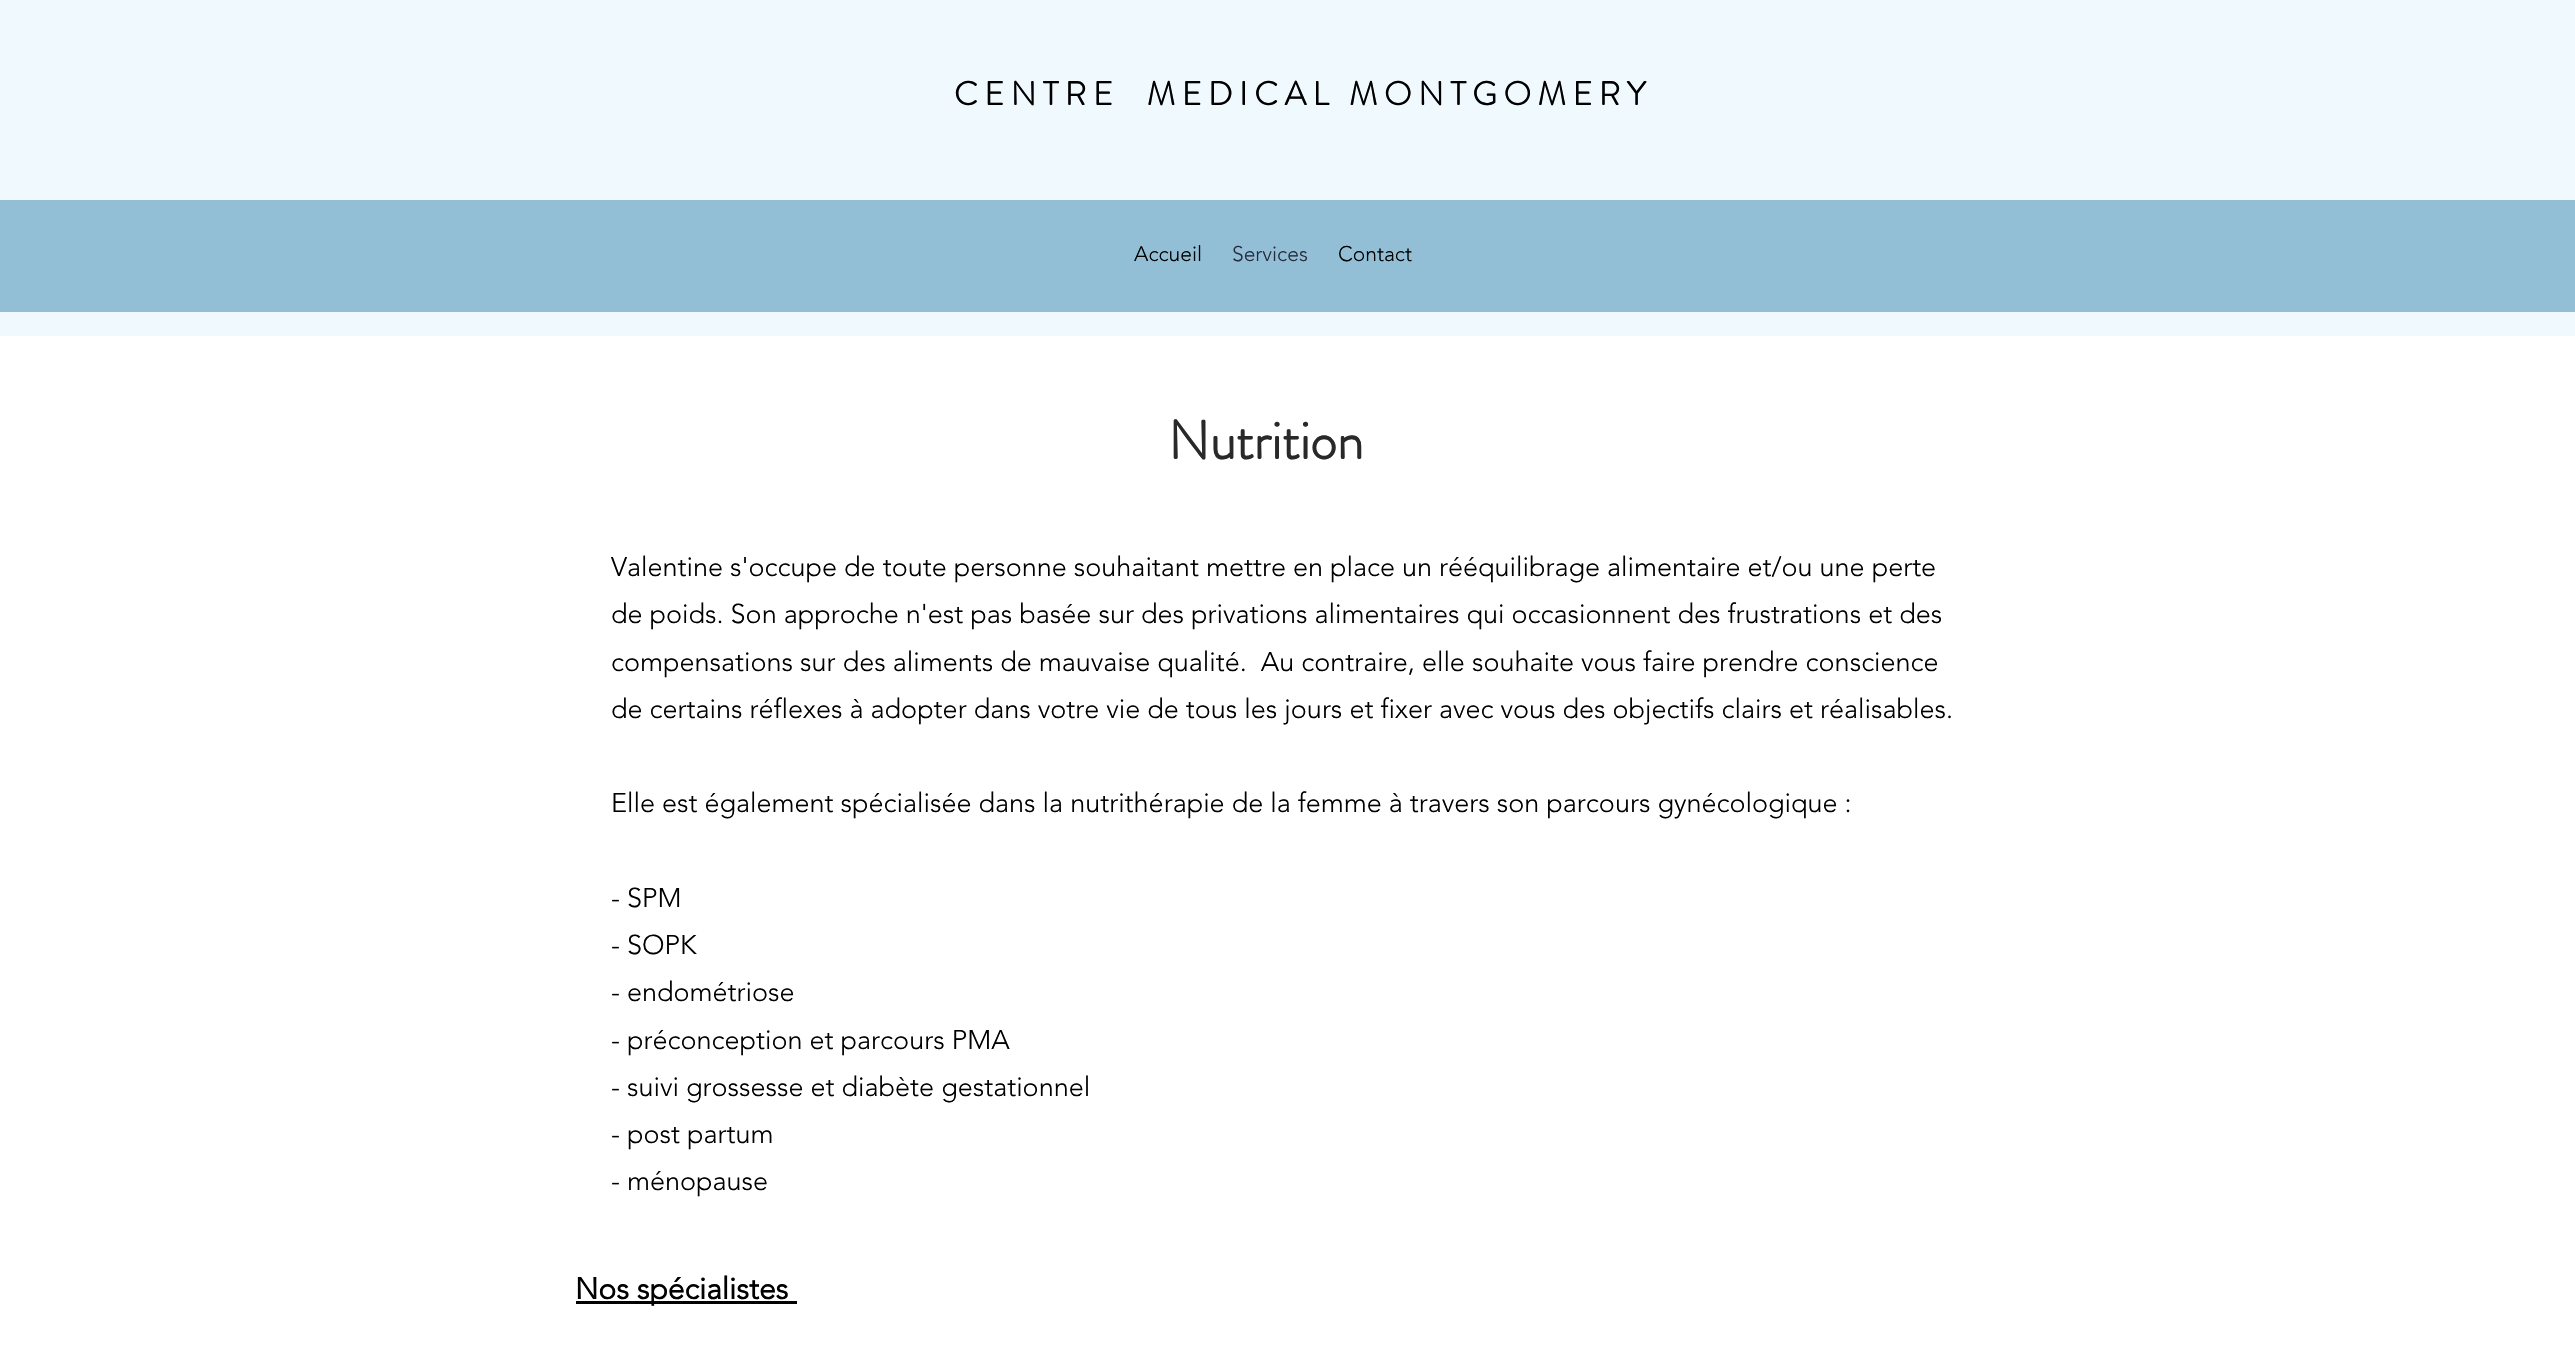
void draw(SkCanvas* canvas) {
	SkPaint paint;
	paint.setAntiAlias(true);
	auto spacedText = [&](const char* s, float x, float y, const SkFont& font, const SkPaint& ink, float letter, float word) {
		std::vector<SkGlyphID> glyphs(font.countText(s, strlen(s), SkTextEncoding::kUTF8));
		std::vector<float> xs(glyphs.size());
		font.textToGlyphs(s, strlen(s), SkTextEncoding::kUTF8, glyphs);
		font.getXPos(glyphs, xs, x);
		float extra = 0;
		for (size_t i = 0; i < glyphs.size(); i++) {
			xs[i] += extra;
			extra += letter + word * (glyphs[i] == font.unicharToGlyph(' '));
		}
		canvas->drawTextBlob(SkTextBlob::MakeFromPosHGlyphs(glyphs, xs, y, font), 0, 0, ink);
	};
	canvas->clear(0xffffffff);
	paint.setColor(0xffeff9fe);
	canvas->drawRect(SkRect::MakeXYWH(0, 0, 2575, 336), paint);
	SkFont f1(fontMgr->matchFamilyStyle("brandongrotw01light", SkFontStyle::Bold()), 33);
	f1.setSubpixel(true);
	paint.setColor(0xff000000);
	spacedText("CENTRE  MEDICAL MONTGOMERY", 954, 105, f1, paint, 6.6, 0);
	paint.setColor(0xff92bed6);
	canvas->drawRect(SkRect::MakeXYWH(0, 200, 2575, 112), paint);
	SkFont f2(fontMgr->matchFamilyStyle("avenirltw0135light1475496", SkFontStyle(300, SkFontStyle::kNormal_Width, SkFontStyle::kUpright_Slant)), 21);
	f2.setSubpixel(true);
	paint.setColor(0xff000000);
	canvas->drawString("Accueil", 1134, 261, f2, paint);
	paint.setColor(0xff262b3b);
	canvas->drawString("Services", 1232, 261, f2, paint);
	paint.setColor(0xff000000);
	canvas->drawString("Contact", 1338, 261, f2, paint);
	SkFont f3(fontMgr->matchFamilyStyle("brandongrotw01light", SkFontStyle::Bold()), 54);
	f3.setSubpixel(true);
	paint.setColor(0xff292929);
	canvas->drawString("Nutrition", 1168, 459, f3, paint);
	SkFont f4(fontMgr->matchFamilyStyle("avenirltw0135light1475496", SkFontStyle(300, SkFontStyle::kNormal_Width, SkFontStyle::kUpright_Slant)), 27);
	f4.setSubpixel(true);
	paint.setColor(0xff000000);
	canvas->drawString("Valentine s'occupe de toute personne souhaitant mettre en place un rééquilibrage alimentaire et/ou une perte", 611, 576, f4, paint);
	canvas->drawString("de poids. Son approche n'est pas basée sur des privations alimentaires qui occasionnent des frustrations et des", 611, 623, f4, paint);
	canvas->drawString("compensations sur des aliments de mauvaise qualité.  Au contraire, elle souhaite vous faire prendre conscience", 611, 671, f4, paint);
	canvas->drawString("de certains réflexes à adopter dans votre vie de tous les jours et fixer avec vous des objectifs clairs et réalisables.", 611, 718, f4, paint);
	canvas->drawString("Elle est également spécialisée dans la nutrithérapie de la femme à travers son parcours gynécologique :", 611, 812, f4, paint);
	canvas->drawString("- SPM", 611, 907, f4, paint);
	canvas->drawString("- SOPK", 611, 954, f4, paint);
	canvas->drawString("- endométriose", 611, 1001, f4, paint);
	canvas->drawString("- préconception et parcours PMA", 611, 1049, f4, paint);
	canvas->drawString("- suivi grossesse et diabète gestationnel", 611, 1096, f4, paint);
	canvas->drawString("- post partum", 611, 1143, f4, paint);
	canvas->drawString("- ménopause", 611, 1190, f4, paint);
	canvas->drawRect(SkRect::MakeXYWH(576, 1301, 221, 3), paint);
	SkFont f5(fontMgr->matchFamilyStyle("avenirltw0135light1475496", SkFontStyle::Bold()), 30);
	f5.setSubpixel(true);
	canvas->drawString("Nos spécialistes", 575, 1299, f5, paint);
}
